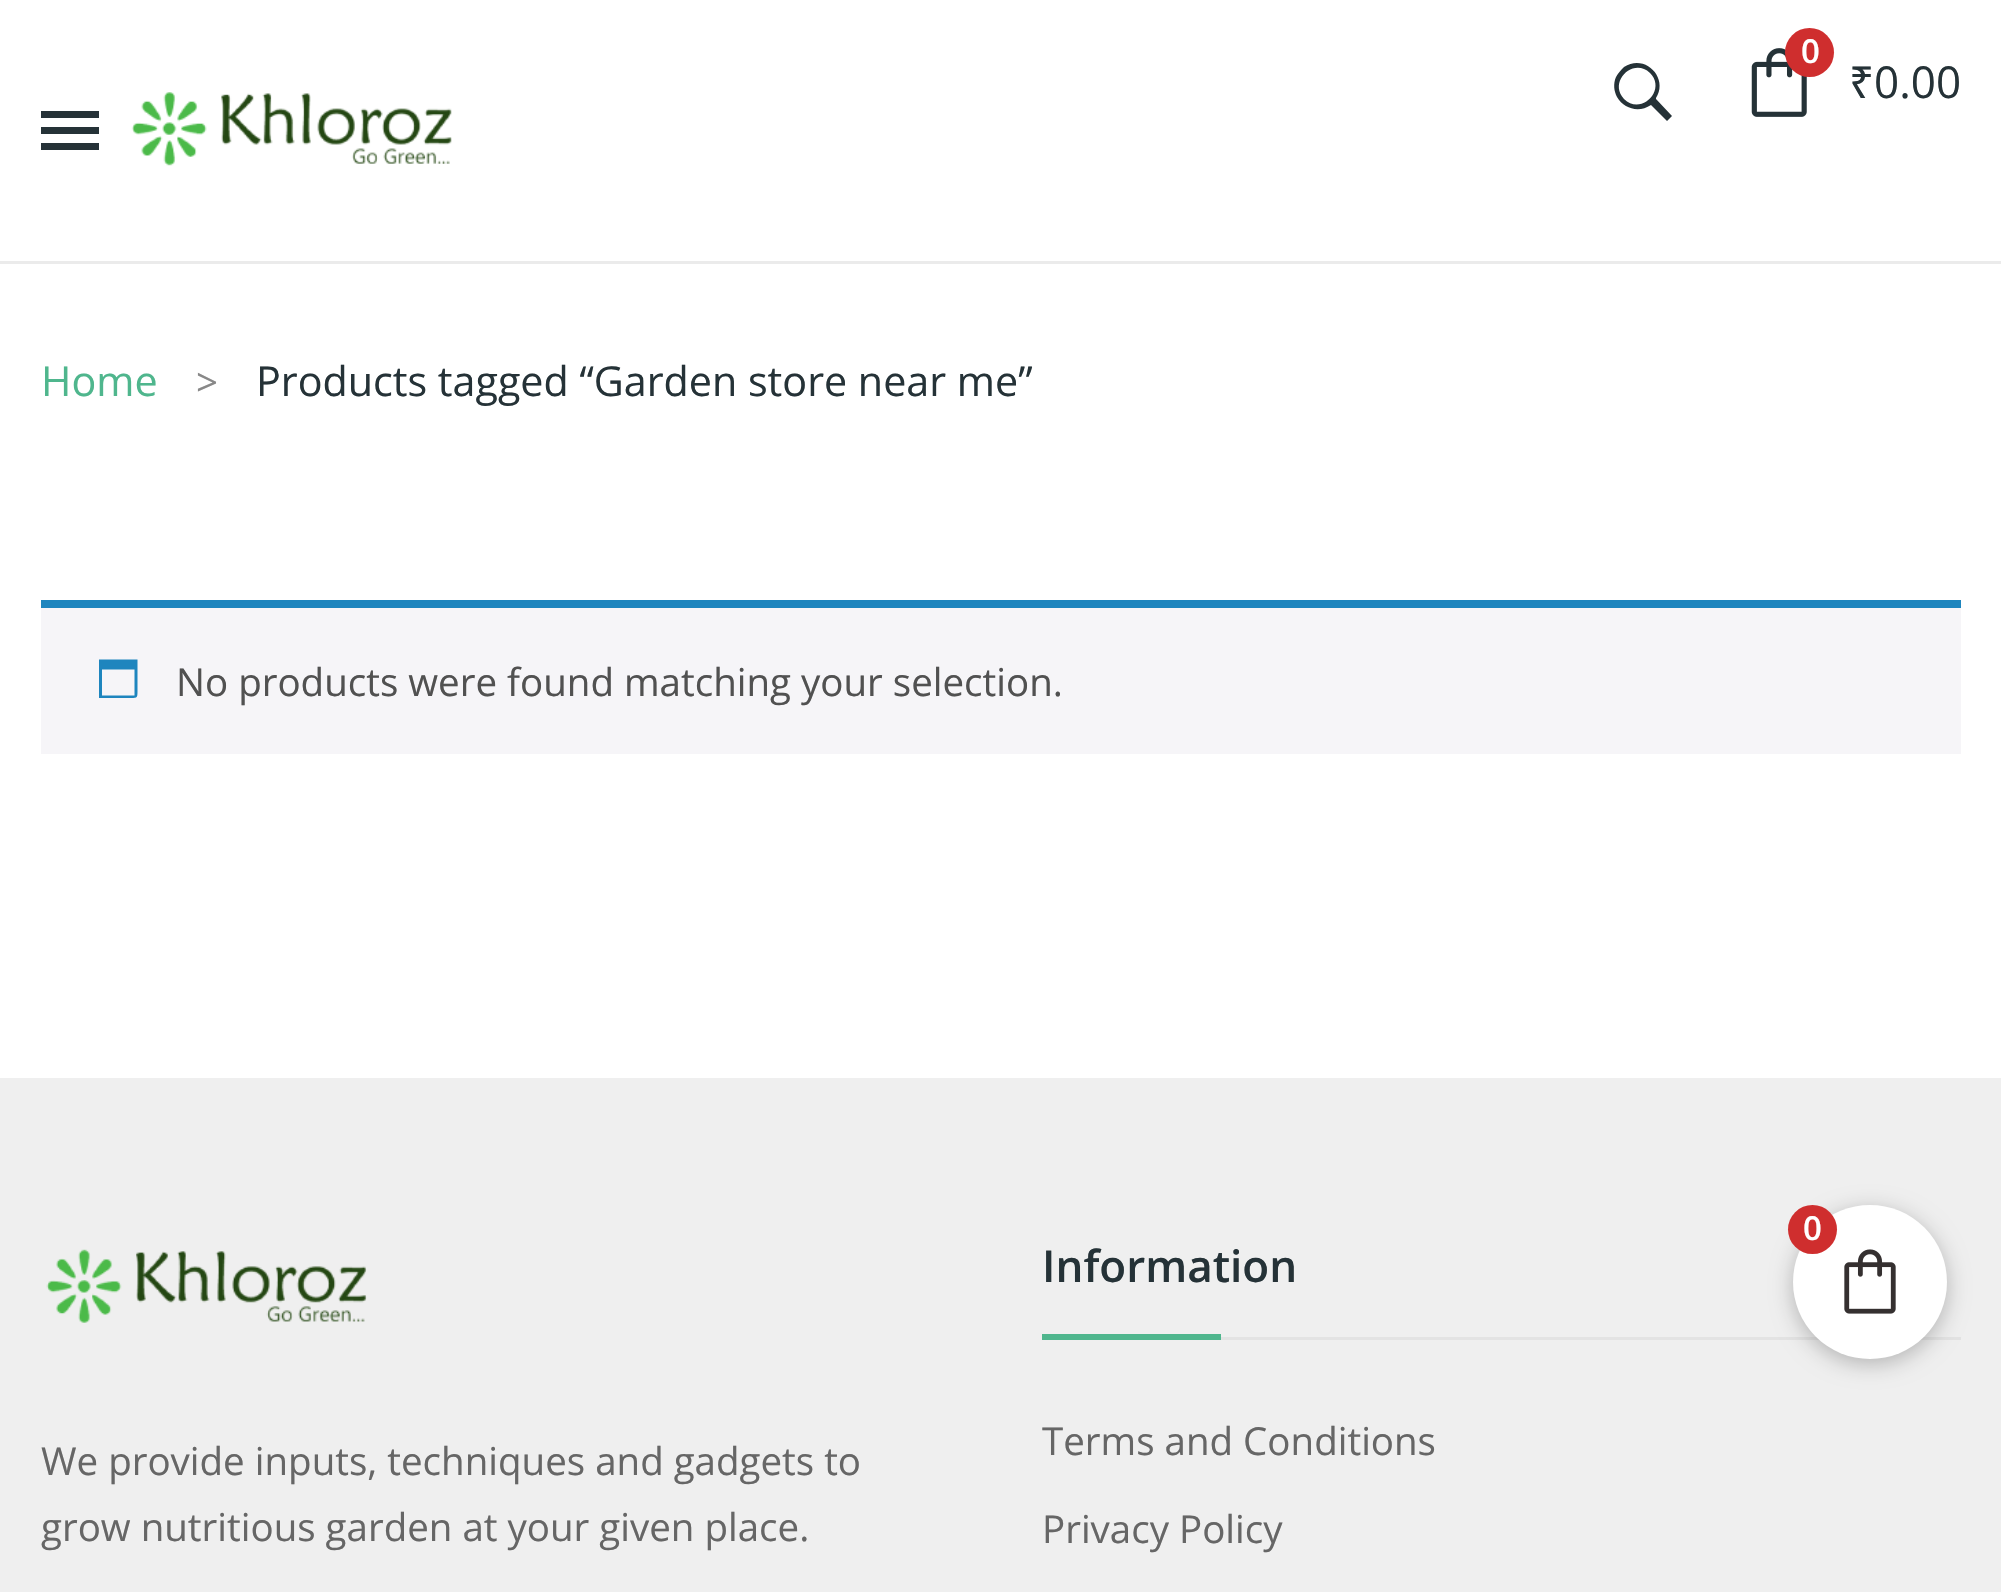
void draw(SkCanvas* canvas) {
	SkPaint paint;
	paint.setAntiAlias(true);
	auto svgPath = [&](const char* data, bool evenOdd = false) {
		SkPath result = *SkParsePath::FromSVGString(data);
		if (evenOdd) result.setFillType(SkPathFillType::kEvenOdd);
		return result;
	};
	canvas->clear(0xffffffff);
	paint.setColor(0xff253237);
	canvas->drawPath(svgPath("M1656 98V99L1672 116L1667 121L1651 105C1639 113 1624 109 1617 97C1614 91 1613 84 1616 77C1618 73 1621 70 1624 67C1645 53 1669 78 1656 98ZM1650 73C1633 57 1608 82 1624 99C1641 116 1667 90 1650 73Z"), paint);
	canvas->drawImageRect(SkImages::DeferredFromEncodedData(SkData::MakeFromFileName("img1.png")), SkRect::MakeXYWH(1751, 48, 56, 69), SkSamplingOptions());
	paint.setColor(0xffcf2e2e);
	canvas->drawCircle(1809.5, 52.5, 24.5, paint);
	SkFont f1(fontMgr->matchFamilyStyle("Open Sans", SkFontStyle(600, SkFontStyle::kNormal_Width, SkFontStyle::kUpright_Slant)), 33);
	f1.setSubpixel(true);
	paint.setColor(0xffffffff);
	canvas->drawString("0", 1801, 63, f1, paint);
	SkFont f2(fontMgr->matchFamilyStyle("Noto Sans", SkFontStyle::Normal()), 44);
	f2.setSubpixel(true);
	paint.setColor(0xff253237);
	canvas->drawString("₹", 1849, 98, f2, paint);
	SkFont f3(fontMgr->matchFamilyStyle("Open Sans", SkFontStyle::Normal()), 44);
	f3.setSubpixel(true);
	canvas->drawString("0.00", 1874, 98, f3, paint);
	canvas->drawPath(svgPath("M41 150V143H99V150ZM41 134V127H99V134ZM41 111H99V118H41Z"), paint);
	canvas->drawImageRect(SkImages::DeferredFromEncodedData(SkData::MakeFromFileName("img2.png")), SkRect::MakeXYWH(131, 92, 321, 74), SkSamplingOptions());
	paint.setColor(0xffebebeb);
	canvas->drawRect(SkRect::MakeXYWH(0, 261, 2001, 3), paint);
	SkFont f4(fontMgr->matchFamilyStyle("Open Sans", SkFontStyle::Normal()), 41.25);
	f4.setSubpixel(true);
	paint.setColor(0xff4fb68d);
	canvas->drawString("Home", 41, 396, f4, paint);
	SkFont f5(fontMgr->matchFamilyStyle("Open Sans", SkFontStyle::Normal()), 38.5);
	f5.setSubpixel(true);
	paint.setColor(0xff888888);
	canvas->drawString(">", 196, 396, f5, paint);
	paint.setColor(0xff253237);
	canvas->drawString("Products tagged “Garden store near me”", 256, 396, f4, paint);
	paint.setColor(0xfff6f5f8);
	canvas->drawRect(SkRect::MakeXYWH(41, 608, 1920, 146), paint);
	paint.setColor(0xff1e85be);
	canvas->drawRect(SkRect::MakeXYWH(41, 600, 1920, 8), paint);
	canvas->drawPath(svgPath("M134.5 669.5H102V695.5H134.5ZM137.5 659.5V689C137.5 698.5 138 698 128.5 698H99V659.5Z"), paint);
	paint.setColor(0xff515151);
	canvas->drawString("No products were found matching your selection.", 176, 696, f5, paint);
	paint.setColor(0xffefefef);
	canvas->drawRect(SkRect::MakeXYWH(0, 1078, 2001, 514), paint);
	canvas->drawImageRect(SkImages::DeferredFromEncodedData(SkData::MakeFromFileName("img3.png")), SkRect::MakeXYWH(46, 1249, 321, 74), SkSamplingOptions());
	paint.setColor(0xff666666);
	canvas->drawString("We provide inputs, techniques and gadgets to", 41, 1475, f5, paint);
	canvas->drawString("grow nutritious garden at your given place.", 41, 1541, f5, paint);
	paint.setColor(0xffe3e3e3);
	canvas->drawRect(SkRect::MakeXYWH(1221, 1337, 740, 3), paint);
	SkFont f6(fontMgr->matchFamilyStyle("Open Sans", SkFontStyle(600, SkFontStyle::kNormal_Width, SkFontStyle::kUpright_Slant)), 44);
	f6.setSubpixel(true);
	paint.setColor(0xff253237);
	canvas->drawString("Information", 1042, 1282, f6, paint);
	paint.setColor(0xff4fb68d);
	canvas->drawRect(SkRect::MakeXYWH(1042, 1334, 179, 6), paint);
	paint.setColor(0xff666666);
	canvas->drawString("Terms and Conditions", 1042, 1455, f5, paint);
	canvas->drawString("Privacy Policy", 1042, 1543, f5, paint);
	paint.setColor(0x40000000);
	paint.setMaskFilter(SkMaskFilter::MakeBlur(kNormal_SkBlurStyle, 11));
	canvas->drawRoundRect(SkRect::MakeXYWH(1793, 1210, 154, 154), 77, 77, paint);
	paint.setMaskFilter(nullptr);
	paint.setColor(0xffffffff);
	canvas->drawCircle(1870, 1282, 77, paint);
	canvas->drawImageRect(SkImages::DeferredFromEncodedData(SkData::MakeFromFileName("img4.png")), SkRect::MakeXYWH(1844, 1249, 52, 65), SkSamplingOptions());
	paint.setColor(0xffcf2e2e);
	canvas->drawCircle(1812.5, 1229.5, 24.5, paint);
	paint.setColor(0xffffffff);
	canvas->drawString("0", 1803, 1240, f1, paint);
}
